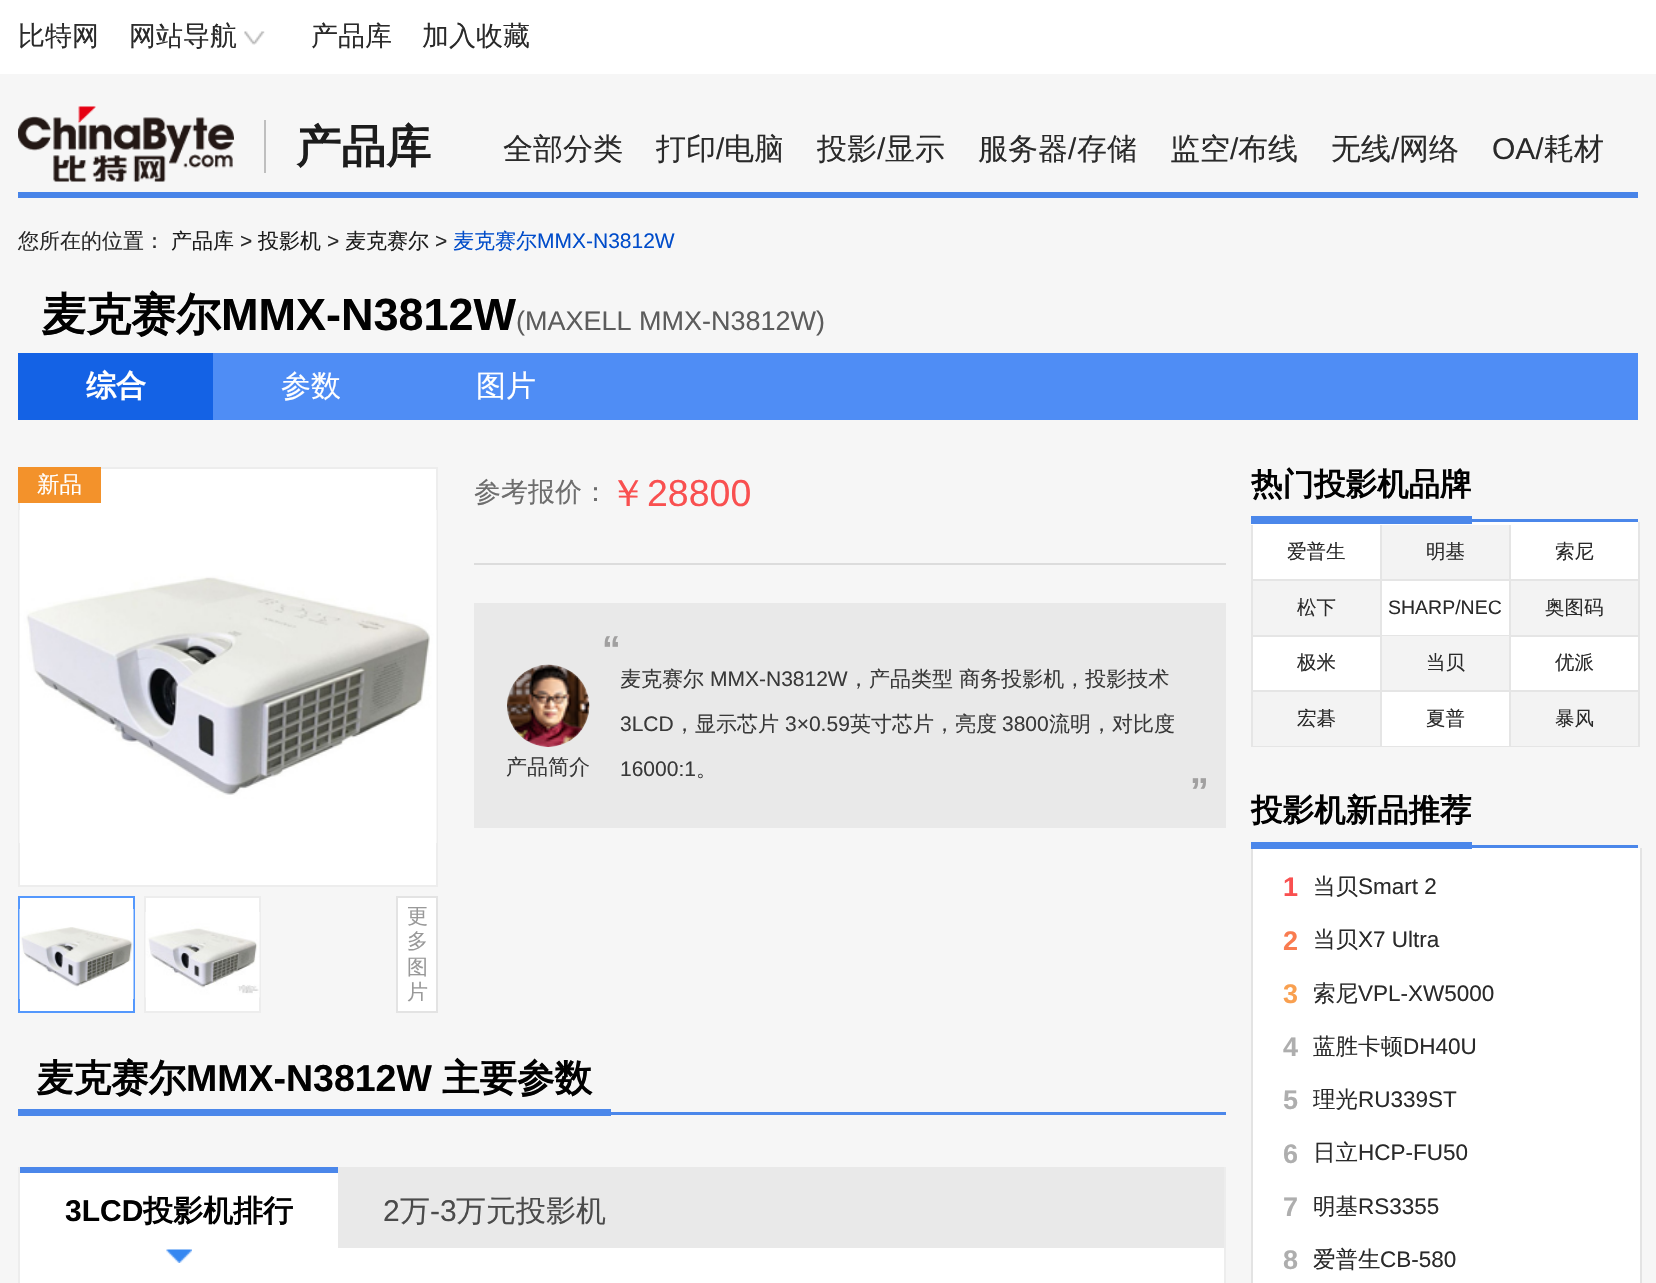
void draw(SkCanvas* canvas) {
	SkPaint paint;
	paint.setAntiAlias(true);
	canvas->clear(0xfff6f6f6);
	paint.setColor(0xffffffff);
	canvas->drawRect(SkRect::MakeXYWH(0, 0, 1656, 74), paint);
	SkFont f1(fontMgr->matchFamilyStyle("WenQuanYi Zen Hei", SkFontStyle(500, SkFontStyle::kNormal_Width, SkFontStyle::kUpright_Slant)), 27);
	f1.setSubpixel(true);
	paint.setColor(0xff2a2a2a);
	canvas->drawString("比特网", 18, 45, f1, paint);
	canvas->drawString("网站导航", 129, 45, f1, paint);
	canvas->drawImageRect(SkImages::DeferredFromEncodedData(SkData::MakeFromFileName("img1.png")), SkRect::MakeXYWH(244, 31, 21, 14), SkSamplingOptions());
	canvas->drawString("产品库", 311, 45, f1, paint);
	canvas->drawString("加入收藏", 422, 45, f1, paint);
	paint.setColor(0xff4884e8);
	canvas->drawRect(SkRect::MakeXYWH(18, 192, 1620, 6), paint);
	canvas->drawImageRect(SkImages::DeferredFromEncodedData(SkData::MakeFromFileName("img2.png")), SkRect::MakeXYWH(18, 106, 216, 76), SkSamplingOptions());
	paint.setColor(0xffbfbfbf);
	canvas->drawRect(SkRect::MakeXYWH(264, 120, 2, 53), paint);
	SkFont f2(fontMgr->matchFamilyStyle("WenQuanYi Zen Hei", SkFontStyle::Bold()), 45);
	f2.setSubpixel(true);
	paint.setColor(0xff1c1c1c);
	canvas->drawString("产品库", 296, 162, f2, paint);
	SkFont f3(fontMgr->matchFamilyStyle("WenQuanYi Zen Hei", SkFontStyle(500, SkFontStyle::kNormal_Width, SkFontStyle::kUpright_Slant)), 30);
	f3.setSubpixel(true);
	paint.setColor(0xff2a2a2a);
	canvas->drawString("全部分类", 503, 159, f3, paint);
	canvas->drawString("打印", 656, 159, f3, paint);
	SkFont f4(fontMgr->matchFamilyStyle("Liberation Sans", SkFontStyle::Normal()), 30);
	f4.setSubpixel(true);
	canvas->drawString("/", 716, 159, f4, paint);
	canvas->drawString("电脑", 724, 159, f3, paint);
	canvas->drawString("投影", 817, 159, f3, paint);
	canvas->drawString("/", 877, 159, f4, paint);
	canvas->drawString("显示", 885, 159, f3, paint);
	canvas->drawString("服务器", 978, 159, f3, paint);
	canvas->drawString("/", 1068, 159, f4, paint);
	canvas->drawString("存储", 1077, 159, f3, paint);
	canvas->drawString("监空", 1170, 159, f3, paint);
	canvas->drawString("/", 1230, 159, f4, paint);
	canvas->drawString("布线", 1238, 159, f3, paint);
	canvas->drawString("无线", 1331, 159, f3, paint);
	canvas->drawString("/", 1391, 159, f4, paint);
	canvas->drawString("网络", 1399, 159, f3, paint);
	canvas->drawString("OA/", 1492, 159, f4, paint);
	canvas->drawString("耗材", 1544, 159, f3, paint);
	SkFont f5(fontMgr->matchFamilyStyle("WenQuanYi Zen Hei", SkFontStyle(500, SkFontStyle::kNormal_Width, SkFontStyle::kUpright_Slant)), 21);
	f5.setSubpixel(true);
	canvas->drawString("您所在的位置：", 18, 248, f5, paint);
	paint.setColor(0xff1c1c1c);
	canvas->drawString("产品库", 171, 248, f5, paint);
	SkFont f6(fontMgr->matchFamilyStyle("Liberation Sans", SkFontStyle::Normal()), 21);
	f6.setSubpixel(true);
	paint.setColor(0xff2a2a2a);
	canvas->drawString(">", 240, 248, f6, paint);
	paint.setColor(0xff1c1c1c);
	canvas->drawString("投影机", 258, 248, f5, paint);
	paint.setColor(0xff2a2a2a);
	canvas->drawString(">", 327, 248, f6, paint);
	paint.setColor(0xff1c1c1c);
	canvas->drawString("麦克赛尔", 345, 248, f5, paint);
	paint.setColor(0xff2a2a2a);
	canvas->drawString(">", 435, 248, f6, paint);
	paint.setColor(0xff004cca);
	canvas->drawString("麦克赛尔", 453, 248, f5, paint);
	canvas->drawString("MMX-N3812W", 537, 248, f6, paint);
	paint.setColor(0xff010101);
	canvas->drawString("麦克赛尔", 41, 330, f2, paint);
	SkFont f7(fontMgr->matchFamilyStyle("Liberation Sans", SkFontStyle::Bold()), 45);
	f7.setSubpixel(true);
	canvas->drawString("MMX-N3812W", 221, 330, f7, paint);
	SkFont f8(fontMgr->matchFamilyStyle("Liberation Sans", SkFontStyle::Normal()), 27);
	f8.setSubpixel(true);
	paint.setColor(0xff5c5c5c);
	canvas->drawString("(MAXELL MMX-N3812W)", 516, 330, f8, paint);
	paint.setColor(0xff4f8df5);
	canvas->drawRect(SkRect::MakeXYWH(213, 353, 1425, 67), paint);
	paint.setColor(0xff1462e5);
	canvas->drawRect(SkRect::MakeXYWH(18, 353, 195, 67), paint);
	SkFont f9(fontMgr->matchFamilyStyle("WenQuanYi Zen Hei", SkFontStyle::Bold()), 30);
	f9.setSubpixel(true);
	paint.setColor(0xffffffff);
	canvas->drawString("综合", 86, 396, f9, paint);
	canvas->drawString("参数", 281, 396, f3, paint);
	canvas->drawString("图片", 476, 396, f3, paint);
	canvas->drawRect(SkRect::MakeXYWH(19, 468, 418, 418), paint);
	paint.setStroke(true);
	paint.setStrokeWidth(2);
	paint.setColor(0xffededed);
	canvas->drawRect(SkRect::MakeXYWH(19, 468, 418, 418), paint);
	canvas->drawImageRect(SkImages::DeferredFromEncodedData(SkData::MakeFromFileName("img3.png")), SkRect::MakeXYWH(19, 510, 418, 333), SkSamplingOptions());
	paint.setStroke(false);
	paint.setColor(0xfff3922b);
	canvas->drawRect(SkRect::MakeXYWH(18, 467, 83, 36), paint);
	SkFont f10(fontMgr->matchFamilyStyle("WenQuanYi Zen Hei", SkFontStyle(500, SkFontStyle::kNormal_Width, SkFontStyle::kUpright_Slant)), 22.5);
	f10.setSubpixel(true);
	paint.setColor(0xffffffff);
	canvas->drawString("新品", 37, 492, f10, paint);
	canvas->drawRect(SkRect::MakeXYWH(19, 897, 115, 115), paint);
	paint.setStroke(true);
	paint.setColor(0xff5498fd);
	canvas->drawRect(SkRect::MakeXYWH(19, 897, 115, 115), paint);
	canvas->drawImageRect(SkImages::DeferredFromEncodedData(SkData::MakeFromFileName("img4.png")), SkRect::MakeXYWH(19, 909, 115, 90), SkSamplingOptions());
	paint.setStroke(false);
	paint.setColor(0xffffffff);
	canvas->drawRect(SkRect::MakeXYWH(145, 897, 115, 115), paint);
	paint.setStroke(true);
	paint.setColor(0xffededed);
	canvas->drawRect(SkRect::MakeXYWH(145, 897, 115, 115), paint);
	canvas->drawImageRect(SkImages::DeferredFromEncodedData(SkData::MakeFromFileName("img5.png")), SkRect::MakeXYWH(145, 912, 115, 86), SkSamplingOptions());
	paint.setStroke(false);
	paint.setColor(0xffffffff);
	canvas->drawRect(SkRect::MakeXYWH(397, 897, 40, 115), paint);
	paint.setStroke(true);
	paint.setColor(0xffe3e3e3);
	canvas->drawRect(SkRect::MakeXYWH(397, 897, 40, 115), paint);
	paint.setStroke(false);
	paint.setColor(0xff999999);
	canvas->drawString("更", 407, 923, f5, paint);
	canvas->drawString("多", 407, 948, f5, paint);
	canvas->drawString("图", 407, 974, f5, paint);
	canvas->drawString("片", 407, 999, f5, paint);
	paint.setColor(0xff6e6e6e);
	canvas->drawString("参考报价：", 474, 501, f1, paint);
	SkFont f11(fontMgr->matchFamilyStyle("WenQuanYi Zen Hei", SkFontStyle(500, SkFontStyle::kNormal_Width, SkFontStyle::kUpright_Slant)), 37.5);
	f11.setSubpixel(true);
	paint.setColor(0xfff95050);
	canvas->drawString("￥", 609, 506, f11, paint);
	SkFont f12(fontMgr->matchFamilyStyle("Liberation Sans", SkFontStyle::Normal()), 37.5);
	f12.setSubpixel(true);
	canvas->drawString("28800", 647, 506, f12, paint);
	paint.setColor(0xffdcdcdc);
	canvas->drawRect(SkRect::MakeXYWH(474, 563, 752, 2), paint);
	paint.setColor(0xffe9e9e9);
	canvas->drawRect(SkRect::MakeXYWH(474, 603, 752, 225), paint);
	canvas->drawImageRect(SkImages::DeferredFromEncodedData(SkData::MakeFromFileName("img6.png")), SkRect::MakeXYWH(507, 664, 83, 83), SkSamplingOptions());
	paint.setColor(0xff393939);
	canvas->drawString("产品简介", 506, 774, f5, paint);
	SkFont f13(fontMgr->matchFamilyStyle("Liberation Sans", SkFontStyle::Bold()), 37.5);
	f13.setSubpixel(true);
	paint.setColor(0xffa1a0a0);
	canvas->drawString("“", 602, 662, f13, paint);
	paint.setColor(0xff393939);
	canvas->drawString("麦克赛尔", 620, 686, f5, paint);
	canvas->drawString("MMX-N3812W", 710, 686, f6, paint);
	canvas->drawString("，产品类型 商务投影机，投影技术", 848, 686, f5, paint);
	canvas->drawString("3LCD", 620, 731, f6, paint);
	canvas->drawString("，显示芯片", 674, 731, f5, paint);
	canvas->drawString("3×0.59", 785, 731, f6, paint);
	canvas->drawString("英寸芯片，亮度", 850, 731, f5, paint);
	canvas->drawString("3800", 1002, 731, f6, paint);
	canvas->drawString("流明，对比度", 1049, 731, f5, paint);
	canvas->drawString("16000:1", 620, 776, f6, paint);
	canvas->drawString("。", 696, 776, f5, paint);
	paint.setColor(0xffa1a0a0);
	canvas->drawString("”", 1190, 804, f13, paint);
	paint.setColor(0xff4b87ea);
	canvas->drawRect(SkRect::MakeXYWH(611, 1112, 615, 3), paint);
	SkFont f14(fontMgr->matchFamilyStyle("WenQuanYi Zen Hei", SkFontStyle::Bold()), 37.5);
	f14.setSubpixel(true);
	paint.setColor(0xff010101);
	canvas->drawString("麦克赛尔", 36, 1091, f14, paint);
	canvas->drawString("MMX-N3812W", 186, 1091, f13, paint);
	canvas->drawString("主要参数", 442, 1091, f14, paint);
	paint.setColor(0xff4b87ea);
	canvas->drawRect(SkRect::MakeXYWH(18, 1109, 593, 7), paint);
	paint.setColor(0xffffffff);
	canvas->drawRect(SkRect::MakeXYWH(20, 1248, 1204, 35), paint);
	paint.setColor(0xffededed);
	canvas->drawRect(SkRect::MakeXYWH(1224, 1167, 2, 116), paint);
	canvas->drawRect(SkRect::MakeXYWH(18, 1167, 2, 116), paint);
	paint.setColor(0xffe9e9e9);
	canvas->drawRect(SkRect::MakeXYWH(338, 1167, 886, 81), paint);
	paint.setColor(0xffffffff);
	canvas->drawRect(SkRect::MakeXYWH(20, 1173, 318, 75), paint);
	paint.setColor(0xff4b87ea);
	canvas->drawRect(SkRect::MakeXYWH(20, 1167, 318, 6), paint);
	SkFont f15(fontMgr->matchFamilyStyle("Liberation Sans", SkFontStyle::Bold()), 30);
	f15.setSubpixel(true);
	paint.setColor(0xff010101);
	canvas->drawString("3LCD", 65, 1221, f15, paint);
	canvas->drawString("投影机排行", 143, 1221, f9, paint);
	canvas->drawImageRect(SkImages::DeferredFromEncodedData(SkData::MakeFromFileName("img7.png")), SkRect::MakeXYWH(166, 1249, 26, 14), SkSamplingOptions());
	paint.setColor(0xff4b4b4b);
	canvas->drawString("2", 383, 1221, f4, paint);
	canvas->drawString("万", 400, 1221, f3, paint);
	canvas->drawString("-3", 430, 1221, f4, paint);
	canvas->drawString("万元投影机", 456, 1221, f3, paint);
	paint.setColor(0xff4b87ea);
	canvas->drawRect(SkRect::MakeXYWH(1472, 519, 166, 3), paint);
	SkFont f16(fontMgr->matchFamilyStyle("WenQuanYi Zen Hei", SkFontStyle::Bold()), 31.5);
	f16.setSubpixel(true);
	paint.setColor(0xff010101);
	canvas->drawString("热门投影机品牌", 1251, 495, f16, paint);
	paint.setColor(0xffffffff);
	canvas->drawRect(SkRect::MakeXYWH(1251, 522, 387, 224), paint);
	paint.setColor(0xff4b87ea);
	canvas->drawRect(SkRect::MakeXYWH(1251, 516, 221, 8), paint);
	paint.setColor(0xffe5e5e5);
	canvas->drawRect(SkRect::MakeXYWH(1638, 522, 2, 225), paint);
	canvas->drawRect(SkRect::MakeXYWH(1251, 579, 387, 2), paint);
	canvas->drawRect(SkRect::MakeXYWH(1251, 525, 2, 56), paint);
	SkFont f17(fontMgr->matchFamilyStyle("WenQuanYi Zen Hei", SkFontStyle(500, SkFontStyle::kNormal_Width, SkFontStyle::kUpright_Slant)), 19.5);
	f17.setSubpixel(true);
	paint.setColor(0xff2a2a2a);
	canvas->drawString("爱普生", 1287, 558, f17, paint);
	paint.setColor(0xfff3f3f3);
	canvas->drawRect(SkRect::MakeXYWH(1382, 525, 127, 54), paint);
	paint.setColor(0xffe5e5e5);
	canvas->drawRect(SkRect::MakeXYWH(1380, 525, 2, 56), paint);
	paint.setColor(0xff2a2a2a);
	canvas->drawString("明基", 1426, 558, f17, paint);
	paint.setColor(0xffe5e5e5);
	canvas->drawRect(SkRect::MakeXYWH(1509, 525, 2, 56), paint);
	paint.setColor(0xff2a2a2a);
	canvas->drawString("索尼", 1555, 558, f17, paint);
	paint.setColor(0xfff3f3f3);
	canvas->drawRect(SkRect::MakeXYWH(1253, 581, 127, 54), paint);
	paint.setColor(0xffe5e5e5);
	canvas->drawRect(SkRect::MakeXYWH(1251, 635, 129, 2), paint);
	canvas->drawRect(SkRect::MakeXYWH(1251, 581, 2, 55), paint);
	paint.setColor(0xff2a2a2a);
	canvas->drawString("松下", 1297, 614, f17, paint);
	paint.setColor(0xffe5e5e5);
	canvas->drawRect(SkRect::MakeXYWH(1380, 635, 129, 1), paint);
	canvas->drawRect(SkRect::MakeXYWH(1380, 581, 2, 55), paint);
	SkFont f18(fontMgr->matchFamilyStyle("Liberation Sans", SkFontStyle::Normal()), 19.5);
	f18.setSubpixel(true);
	paint.setColor(0xff2a2a2a);
	canvas->drawString("SHARP/NEC", 1388, 614, f18, paint);
	paint.setColor(0xfff3f3f3);
	canvas->drawRect(SkRect::MakeXYWH(1511, 581, 127, 54), paint);
	paint.setColor(0xffe5e5e5);
	canvas->drawRect(SkRect::MakeXYWH(1509, 635, 129, 2), paint);
	canvas->drawRect(SkRect::MakeXYWH(1509, 581, 2, 55), paint);
	paint.setColor(0xff2a2a2a);
	canvas->drawString("奥图码", 1545, 614, f17, paint);
	paint.setColor(0xffe5e5e5);
	canvas->drawRect(SkRect::MakeXYWH(1251, 690, 387, 2), paint);
	canvas->drawRect(SkRect::MakeXYWH(1251, 636, 2, 56), paint);
	paint.setColor(0xff2a2a2a);
	canvas->drawString("极米", 1297, 669, f17, paint);
	paint.setColor(0xfff3f3f3);
	canvas->drawRect(SkRect::MakeXYWH(1382, 636, 127, 54), paint);
	paint.setColor(0xffe5e5e5);
	canvas->drawRect(SkRect::MakeXYWH(1380, 636, 2, 56), paint);
	paint.setColor(0xff2a2a2a);
	canvas->drawString("当贝", 1426, 669, f17, paint);
	paint.setColor(0xffe5e5e5);
	canvas->drawRect(SkRect::MakeXYWH(1509, 636, 2, 56), paint);
	paint.setColor(0xff2a2a2a);
	canvas->drawString("优派", 1555, 669, f17, paint);
	paint.setColor(0xfff3f3f3);
	canvas->drawRect(SkRect::MakeXYWH(1253, 692, 127, 54), paint);
	paint.setColor(0xffe5e5e5);
	canvas->drawRect(SkRect::MakeXYWH(1251, 746, 387, 1), paint);
	canvas->drawRect(SkRect::MakeXYWH(1251, 692, 2, 55), paint);
	paint.setColor(0xff2a2a2a);
	canvas->drawString("宏碁", 1297, 725, f17, paint);
	paint.setColor(0xffe5e5e5);
	canvas->drawRect(SkRect::MakeXYWH(1380, 692, 2, 55), paint);
	paint.setColor(0xff2a2a2a);
	canvas->drawString("夏普", 1426, 725, f17, paint);
	paint.setColor(0xfff3f3f3);
	canvas->drawRect(SkRect::MakeXYWH(1511, 692, 127, 54), paint);
	paint.setColor(0xffe5e5e5);
	canvas->drawRect(SkRect::MakeXYWH(1509, 692, 2, 55), paint);
	paint.setColor(0xff2a2a2a);
	canvas->drawString("暴风", 1555, 725, f17, paint);
	paint.setColor(0xff4b87ea);
	canvas->drawRect(SkRect::MakeXYWH(1472, 845, 166, 3), paint);
	paint.setColor(0xff010101);
	canvas->drawString("投影机新品推荐", 1251, 821, f16, paint);
	paint.setColor(0xffffffff);
	canvas->drawRect(SkRect::MakeXYWH(1253, 848, 387, 435), paint);
	paint.setColor(0xffe3e3e3);
	canvas->drawRect(SkRect::MakeXYWH(1251, 848, 2, 435), paint);
	paint.setColor(0xff4b87ea);
	canvas->drawRect(SkRect::MakeXYWH(1251, 842, 221, 7), paint);
	paint.setColor(0xffe3e3e3);
	canvas->drawRect(SkRect::MakeXYWH(1640, 848, 2, 435), paint);
	SkFont f19(fontMgr->matchFamilyStyle("Liberation Sans", SkFontStyle::Bold()), 27);
	f19.setSubpixel(true);
	paint.setColor(0xfff95050);
	canvas->drawString("1", 1283, 896, f19, paint);
	paint.setColor(0xff2a2a2a);
	canvas->drawString("当贝", 1313, 894, f10, paint);
	SkFont f20(fontMgr->matchFamilyStyle("Liberation Sans", SkFontStyle::Normal()), 22.5);
	f20.setSubpixel(true);
	canvas->drawString("Smart 2", 1358, 894, f20, paint);
	paint.setColor(0xfff97c50);
	canvas->drawString("2", 1283, 950, f19, paint);
	paint.setColor(0xff2a2a2a);
	canvas->drawString("当贝", 1313, 947, f10, paint);
	canvas->drawString("X7 Ultra", 1358, 947, f20, paint);
	paint.setColor(0xfff9a050);
	canvas->drawString("3", 1283, 1003, f19, paint);
	paint.setColor(0xff2a2a2a);
	canvas->drawString("索尼", 1313, 1001, f10, paint);
	canvas->drawString("VPL-XW5000", 1358, 1001, f20, paint);
	paint.setColor(0xffaeaeae);
	canvas->drawString("4", 1283, 1056, f19, paint);
	paint.setColor(0xff2a2a2a);
	canvas->drawString("蓝胜卡顿", 1313, 1054, f10, paint);
	canvas->drawString("DH40U", 1403, 1054, f20, paint);
	paint.setColor(0xffaeaeae);
	canvas->drawString("5", 1283, 1109, f19, paint);
	paint.setColor(0xff2a2a2a);
	canvas->drawString("理光", 1313, 1107, f10, paint);
	canvas->drawString("RU339ST", 1358, 1107, f20, paint);
	paint.setColor(0xffaeaeae);
	canvas->drawString("6", 1283, 1163, f19, paint);
	paint.setColor(0xff2a2a2a);
	canvas->drawString("日立", 1313, 1160, f10, paint);
	canvas->drawString("HCP-FU50", 1358, 1160, f20, paint);
	paint.setColor(0xffaeaeae);
	canvas->drawString("7", 1283, 1216, f19, paint);
	paint.setColor(0xff2a2a2a);
	canvas->drawString("明基", 1313, 1214, f10, paint);
	canvas->drawString("RS3355", 1358, 1214, f20, paint);
	paint.setColor(0xffaeaeae);
	canvas->drawString("8", 1283, 1269, f19, paint);
	paint.setColor(0xff2a2a2a);
	canvas->drawString("爱普生", 1313, 1267, f10, paint);
	canvas->drawString("CB-580", 1380, 1267, f20, paint);
}
